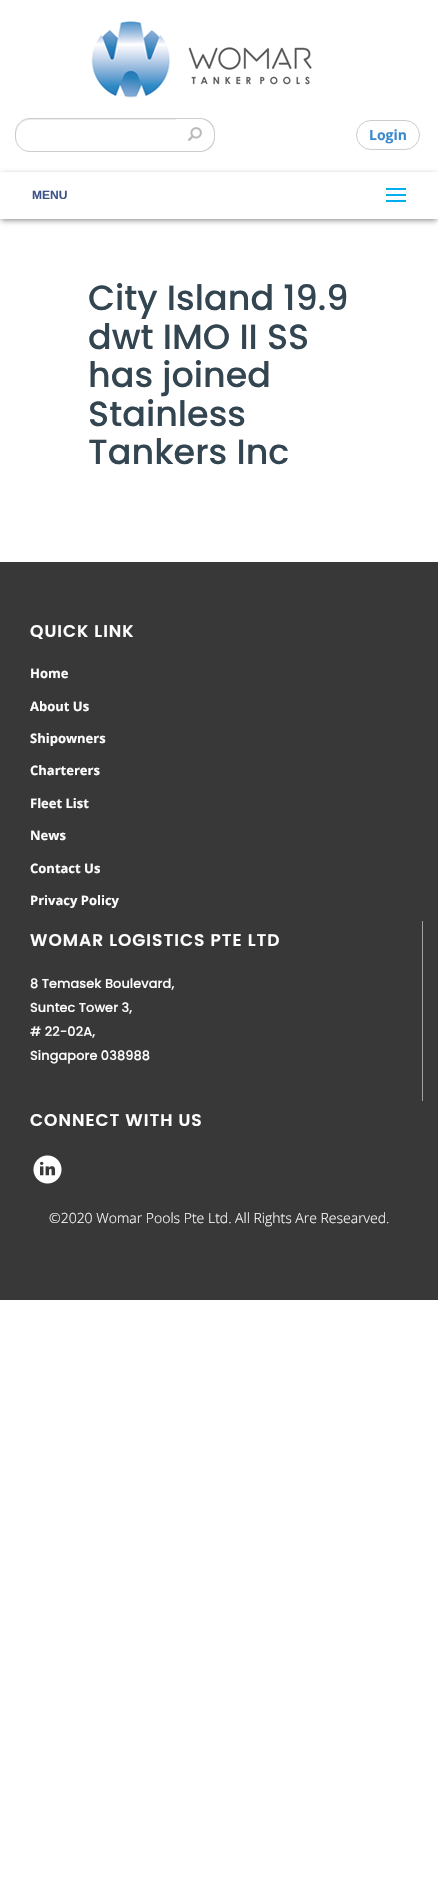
void draw(SkCanvas* canvas) {
	SkPaint paint;
	paint.setAntiAlias(true);
	auto spacedText = [&](const char* s, float x, float y, const SkFont& font, const SkPaint& ink, float letter, float word) {
		std::vector<SkGlyphID> glyphs(font.countText(s, strlen(s), SkTextEncoding::kUTF8));
		std::vector<float> xs(glyphs.size());
		font.textToGlyphs(s, strlen(s), SkTextEncoding::kUTF8, glyphs);
		font.getXPos(glyphs, xs, x);
		float extra = 0;
		for (size_t i = 0; i < glyphs.size(); i++) {
			xs[i] += extra;
			extra += letter + word * (glyphs[i] == font.unicharToGlyph(' '));
		}
		canvas->drawTextBlob(SkTextBlob::MakeFromPosHGlyphs(glyphs, xs, y, font), 0, 0, ink);
	};
	auto svgPath = [&](const char* data, bool evenOdd = false) {
		SkPath result = *SkParsePath::FromSVGString(data);
		if (evenOdd) result.setFillType(SkPathFillType::kEvenOdd);
		return result;
	};
	canvas->clear(0xffffffff);
	canvas->drawImageRect(SkImages::DeferredFromEncodedData(SkData::MakeFromFileName("img1.png")), SkRect::MakeXYWH(91, 21, 221, 77), SkSamplingOptions());
	paint.setColor(0xffececec);
	canvas->drawPath(svgPath("M30 120H176V119H30C22 119 16 125 16 133V137L17 142C14 132 19 120 30 120Z"), paint);
	paint.setStroke(true);
	paint.setStrokeWidth(1);
	paint.setColor(0xffcccccc);
	canvas->drawPath(svgPath("M30 118.5H176.5V151.5H30C22 151.5 15.5 145 15.5 137V133C15.5 125 22 118.5 30 118.5Z"), paint);
	paint.setStroke(false);
	paint.setColor(0xffffffff);
	canvas->drawPath(svgPath("M176 118H200C208.5 118 215 124.5 215 133V137C215 145.5 208.5 152 200 152H176Z"), paint);
	paint.setColor(0xffcccccc);
	canvas->drawPath(svgPath("M176 118H200C208.5 118 215 124.5 215 133V137C215 145.5 208.5 152 200 152H176ZM176 119H200C207.5 119 214 125.5 214 133V137C214 144.5 207.5 151 200 151H176Z", true), paint);
	canvas->drawImageRect(SkImages::DeferredFromEncodedData(SkData::MakeFromFileName("img2.png")), SkRect::MakeXYWH(188, 127, 14, 14), SkSamplingOptions());
	paint.setStroke(true);
	canvas->drawRoundRect(SkRect::MakeXYWH(356.5, 120.5, 63, 29), 14.5, 14.5, paint);
	SkFont f1(fontMgr->matchFamilyStyle("Open Sans", SkFontStyle::Bold()), 14);
	f1.setSubpixel(true);
	paint.setStroke(false);
	paint.setColor(0xff3a8acd);
	canvas->drawString("Login", 369, 140, f1, paint);
	canvas->save();
	canvas->clipPath(svgPath("M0 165H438V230H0ZM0 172H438V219H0Z", true), true);
	paint.setColor(0x80000000);
	paint.setMaskFilter(SkMaskFilter::MakeBlur(kNormal_SkBlurStyle, 3));
	canvas->drawRect(SkRect::MakeXYWH(1, 175, 436, 45), paint);
	paint.setMaskFilter(nullptr);
	canvas->restore();
	paint.setColor(0xff00afe9);
	canvas->drawRect(SkRect::MakeXYWH(386, 188, 20, 2), paint);
	SkFont f2(fontMgr->matchFamilyStyle("Liberation Sans", SkFontStyle::Bold()), 12);
	f2.setSubpixel(true);
	paint.setColor(0xff3c538b);
	canvas->drawString("MENU", 32, 199, f2, paint);
	paint.setColor(0xff00afe9);
	canvas->drawRect(SkRect::MakeXYWH(386, 194, 20, 2), paint);
	canvas->drawRect(SkRect::MakeXYWH(386, 200, 20, 2), paint);
	SkFont f3(fontMgr->matchFamilyStyle("Poppins", SkFontStyle(500, SkFontStyle::kNormal_Width, SkFontStyle::kUpright_Slant)), 35);
	f3.setSubpixel(true);
	paint.setColor(0xff334550);
	canvas->drawString("City Island 19.9", 88, 310, f3, paint);
	canvas->drawString("dwt IMO II SS", 88, 349, f3, paint);
	canvas->drawString("has joined", 88, 387, f3, paint);
	canvas->drawString("Stainless", 88, 426, f3, paint);
	canvas->drawString("Tankers Inc", 88, 464, f3, paint);
	paint.setColor(0xff383838);
	canvas->drawRect(SkRect::MakeXYWH(0, 562, 438, 738), paint);
	SkFont f4(fontMgr->matchFamilyStyle("Poppins", SkFontStyle(600, SkFontStyle::kNormal_Width, SkFontStyle::kUpright_Slant)), 17);
	f4.setSubpixel(true);
	paint.setColor(0xffffffff);
	spacedText("QUICK LINK", 30, 637, f4, paint, 1, 0);
	SkFont f5(fontMgr->matchFamilyStyle("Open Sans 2", SkFontStyle::Bold()), 13);
	f5.setSubpixel(true);
	canvas->drawString("Home", 30, 678, f5, paint);
	canvas->drawString("About Us", 30, 711, f5, paint);
	canvas->drawString("Shipowners", 30, 743, f5, paint);
	canvas->drawString("Charterers", 30, 775, f5, paint);
	canvas->drawString("Fleet List", 30, 808, f5, paint);
	canvas->drawString("News", 30, 840, f5, paint);
	canvas->drawString("Contact Us", 30, 873, f5, paint);
	canvas->drawString("Privacy Policy", 30, 905, f5, paint);
	paint.setColor(0xffa1a1a1);
	canvas->drawRect(SkRect::MakeXYWH(422, 921, 1, 180), paint);
	paint.setColor(0xffffffff);
	spacedText("WOMAR LOGISTICS PTE LTD", 30, 946, f4, paint, 1, 0);
	SkFont f6(fontMgr->matchFamilyStyle("Poppins", SkFontStyle(500, SkFontStyle::kNormal_Width, SkFontStyle::kUpright_Slant)), 13);
	f6.setSubpixel(true);
	canvas->drawString("8 Temasek Boulevard,", 30, 988, f6, paint);
	canvas->drawString("Suntec Tower 3,", 30, 1012, f6, paint);
	canvas->drawString("# 22-02A,", 30, 1036, f6, paint);
	canvas->drawString("Singapore 038988", 30, 1060, f6, paint);
	spacedText("CONNECT WITH US", 30, 1126, f4, paint, 1, 0);
	canvas->drawImageRect(SkImages::DeferredFromEncodedData(SkData::MakeFromFileName("img3.png")), SkRect::MakeXYWH(33, 1155, 29, 29), SkSamplingOptions());
	SkFont f7(fontMgr->matchFamilyStyle("Open Sans", SkFontStyle(300, SkFontStyle::kNormal_Width, SkFontStyle::kUpright_Slant)), 14);
	f7.setSubpixel(true);
	canvas->drawString("©2020 Womar Pools Pte Ltd. All Rights Are Researved.", 49, 1223, f7, paint);
}
